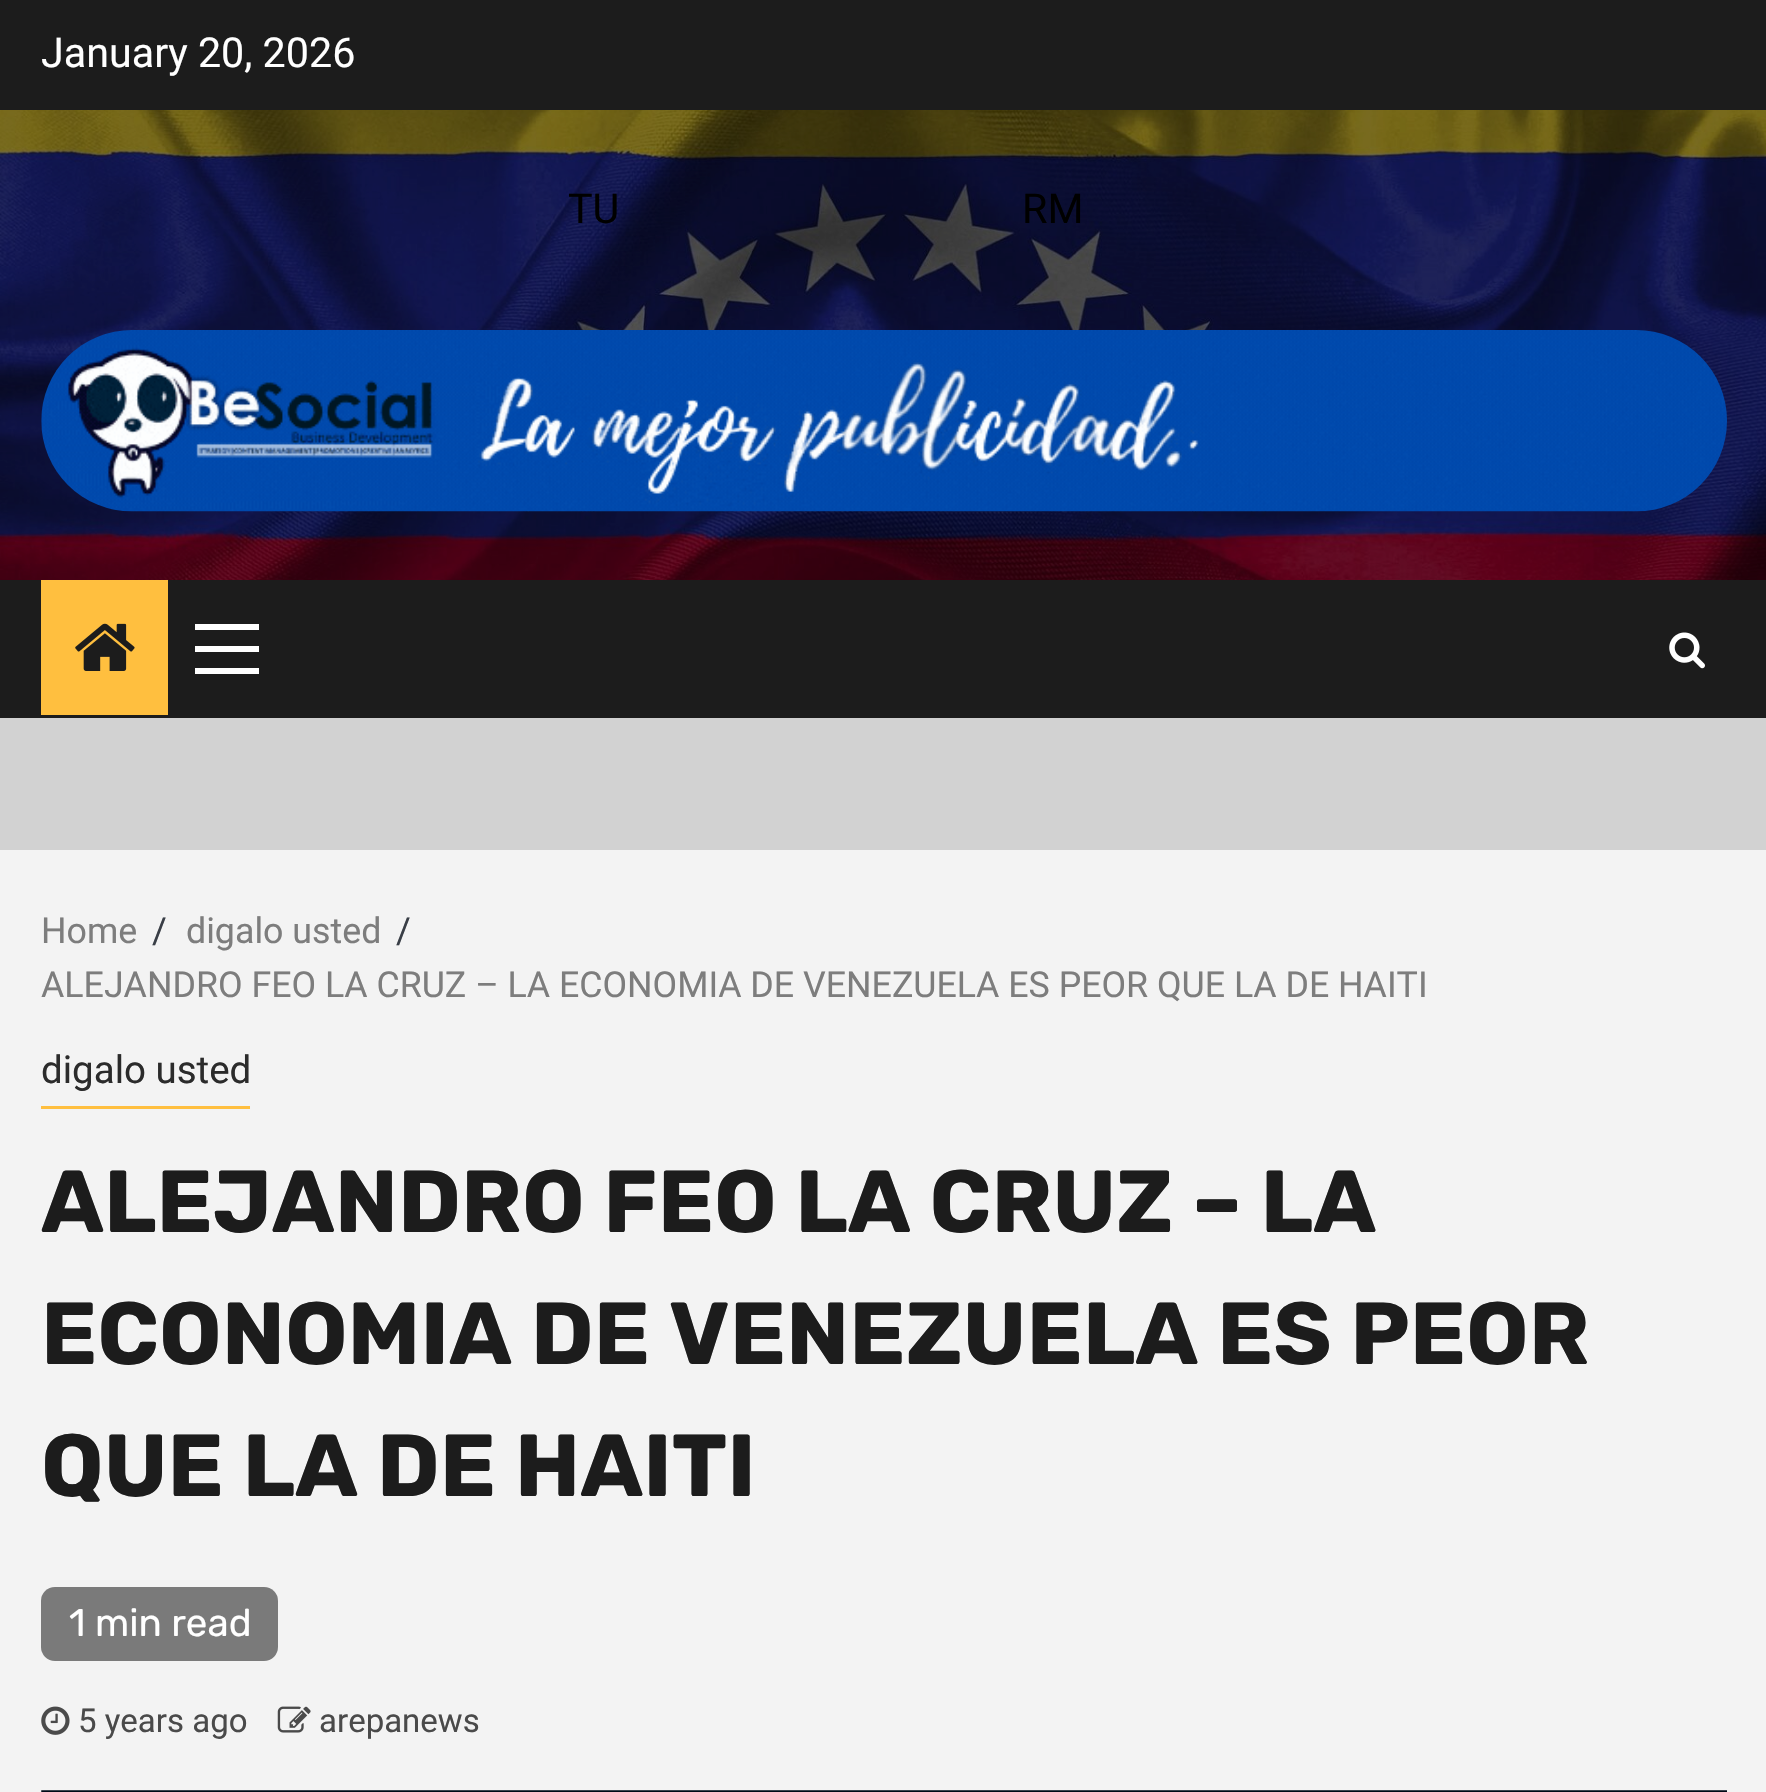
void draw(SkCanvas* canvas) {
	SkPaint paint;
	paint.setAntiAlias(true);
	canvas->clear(0xfff3f3f3);
	paint.setColor(0xffd2d2d2);
	canvas->drawRect(SkRect::MakeXYWH(0, 718, 1766, 132), paint);
	paint.setColor(0xff1c1c1c);
	canvas->drawRect(SkRect::MakeXYWH(0, 0, 1766, 110), paint);
	SkFont f1(fontMgr->matchFamilyStyle("Roboto", SkFontStyle::Normal()), 41.25);
	f1.setSubpixel(true);
	paint.setColor(0xffffffff);
	canvas->drawString("January 20, 2026", 41, 67, f1, paint);
	canvas->drawImageRect(SkImages::DeferredFromEncodedData(SkData::MakeFromFileName("img1.png")), SkRect::MakeXYWH(0, 110, 1766, 470), SkSamplingOptions());
	paint.setColor(0xff000000);
	canvas->drawString("TU", 568, 223, f1, paint);
	canvas->drawString("RM", 1022, 223, f1, paint);
	canvas->drawImageRect(SkImages::DeferredFromEncodedData(SkData::MakeFromFileName("img2.png")), SkRect::MakeXYWH(41, 330, 1686, 182), SkSamplingOptions());
	paint.setColor(0xff1c1c1c);
	canvas->drawRect(SkRect::MakeXYWH(0, 580, 1766, 138), paint);
	paint.setColor(0xffffbf3f);
	canvas->drawRect(SkRect::MakeXYWH(41, 580, 127, 135), paint);
	canvas->drawImageRect(SkImages::DeferredFromEncodedData(SkData::MakeFromFileName("img3.png")), SkRect::MakeXYWH(75, 623, 60, 48), SkSamplingOptions());
	paint.setColor(0xffffffff);
	canvas->drawRect(SkRect::MakeXYWH(195, 646, 64, 6), paint);
	canvas->drawRect(SkRect::MakeXYWH(195, 624, 64, 6), paint);
	canvas->drawRect(SkRect::MakeXYWH(195, 668, 64, 6), paint);
	canvas->drawImageRect(SkImages::DeferredFromEncodedData(SkData::MakeFromFileName("img4.png")), SkRect::MakeXYWH(1669, 632, 36, 37), SkSamplingOptions());
	SkFont f2(fontMgr->matchFamilyStyle("Roboto", SkFontStyle::Normal()), 35.75);
	f2.setSubpixel(true);
	paint.setColor(0xff7d7d7d);
	canvas->drawString("Home", 41, 943, f2, paint);
	paint.setColor(0xff393e46);
	canvas->drawString("/", 152, 943, f2, paint);
	paint.setColor(0xff7d7d7d);
	canvas->drawString("digalo usted", 186, 943, f2, paint);
	paint.setColor(0xff393e46);
	canvas->drawString("/", 396, 943, f2, paint);
	paint.setColor(0xff7d7d7d);
	canvas->drawString("ALEJANDRO FEO LA CRUZ – LA ECONOMIA DE VENEZUELA ES PEOR QUE LA DE HAITI", 41, 997, f2, paint);
	paint.setColor(0xffffbf3f);
	canvas->drawRect(SkRect::MakeXYWH(41, 1106, 209, 3), paint);
	SkFont f3(fontMgr->matchFamilyStyle("Roboto", SkFontStyle::Normal()), 38.5);
	f3.setSubpixel(true);
	paint.setColor(0xff2b2b2b);
	canvas->drawString("digalo usted", 41, 1083, f3, paint);
	SkFont f4(fontMgr->matchFamilyStyle("Rubik", SkFontStyle::Bold()), 88);
	f4.setSubpixel(true);
	paint.setColor(0xff1c1c1c);
	canvas->drawString("ALEJANDRO FEO LA CRUZ – LA", 41, 1232, f4, paint);
	canvas->drawString("ECONOMIA DE VENEZUELA ES PEOR", 41, 1364, f4, paint);
	canvas->drawString("QUE LA DE HAITI", 41, 1496, f4, paint);
	paint.setColor(0xff7a7a7a);
	canvas->drawRoundRect(SkRect::MakeXYWH(41, 1587, 237, 74), 14, 14, paint);
	SkFont f5(fontMgr->matchFamilyStyle("Rubik", SkFontStyle::Normal()), 38.5);
	f5.setSubpixel(true);
	paint.setColor(0xffffffff);
	canvas->drawString("1 min read", 69, 1636, f5, paint);
	canvas->drawImageRect(SkImages::DeferredFromEncodedData(SkData::MakeFromFileName("img5.png")), SkRect::MakeXYWH(41, 1706, 29, 29), SkSamplingOptions());
	SkFont f6(fontMgr->matchFamilyStyle("Roboto", SkFontStyle::Normal()), 33);
	f6.setSubpixel(true);
	paint.setColor(0xff4a4a4a);
	canvas->drawString("5 years ago", 78, 1732, f6, paint);
	canvas->drawImageRect(SkImages::DeferredFromEncodedData(SkData::MakeFromFileName("img6.png")), SkRect::MakeXYWH(277, 1706, 34, 27), SkSamplingOptions());
	canvas->drawString("arepanews", 319, 1732, f6, paint);
	canvas->drawImageRect(SkImages::DeferredFromEncodedData(SkData::MakeFromFileName("img7.png")), SkRect::MakeXYWH(41, 1790, 1686, 2), SkSamplingOptions());
}
